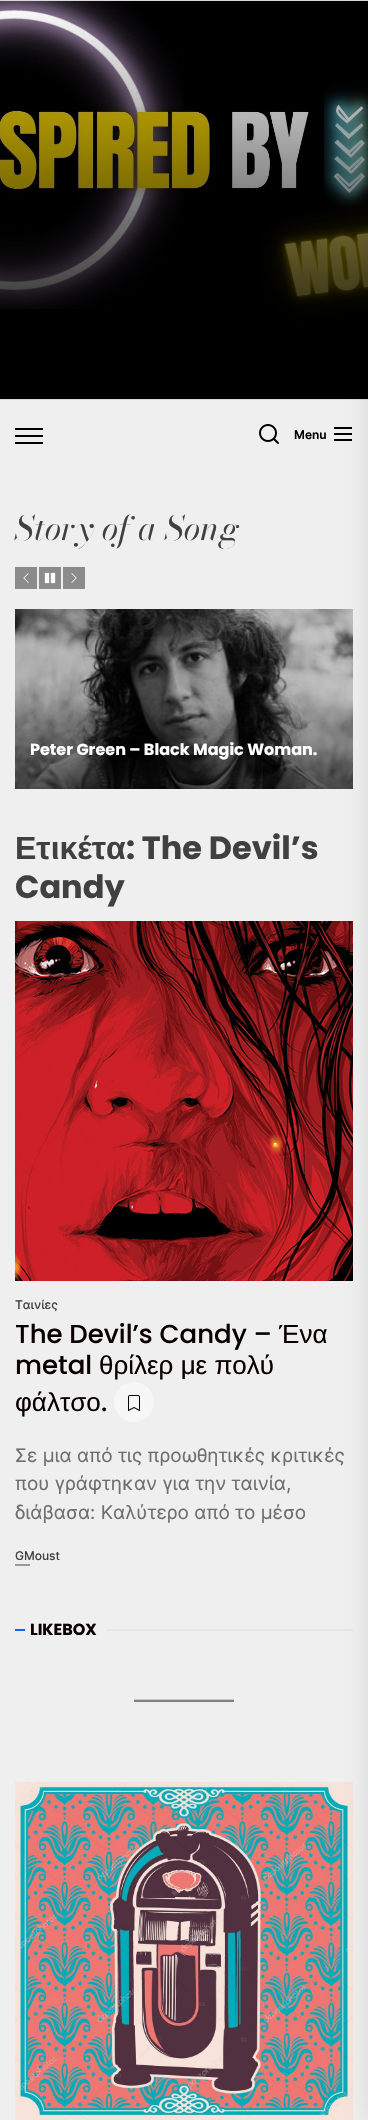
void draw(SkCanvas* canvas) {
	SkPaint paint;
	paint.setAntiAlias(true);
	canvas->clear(0xffefefef);
	canvas->drawImageRect(SkImages::DeferredFromEncodedData(SkData::MakeFromFileName("img1.png")), SkRect::MakeXYWH(0, 1, 368, 398), SkSamplingOptions());
	paint.setColor(0xffdad9d9);
	canvas->drawRect(SkRect::MakeXYWH(0, 0, 368, 1), paint);
	canvas->drawRect(SkRect::MakeXYWH(0, 399, 368, 1), paint);
	paint.setColor(0xff000000);
	canvas->drawRect(SkRect::MakeXYWH(15, 435, 28, 2), paint);
	canvas->drawRect(SkRect::MakeXYWH(15, 428, 28, 2), paint);
	canvas->drawRect(SkRect::MakeXYWH(15, 442, 28, 2), paint);
	canvas->drawImageRect(SkImages::DeferredFromEncodedData(SkData::MakeFromFileName("img2.png")), SkRect::MakeXYWH(259, 424, 20, 20), SkSamplingOptions());
	SkFont f1(fontMgr->matchFamilyStyle("Inter", SkFontStyle(600, SkFontStyle::kNormal_Width, SkFontStyle::kUpright_Slant)), 12);
	f1.setSubpixel(true);
	canvas->drawString("Menu", 294, 439, f1, paint);
	canvas->drawImageRect(SkImages::DeferredFromEncodedData(SkData::MakeFromFileName("img3.png")), SkRect::MakeXYWH(334, 427, 18, 14), SkSamplingOptions());
	SkFont f2(fontMgr->matchFamilyStyle("Bodoni Moda", SkFontStyle::Italic()), 34);
	f2.setSubpixel(true);
	paint.setColor(0xff404040);
	canvas->drawString("Story of a Song", 15, 540, f2, paint);
	paint.setColor(0xff8b8b8b);
	canvas->drawRect(SkRect::MakeXYWH(15, 567, 22, 22), paint);
	canvas->drawImageRect(SkImages::DeferredFromEncodedData(SkData::MakeFromFileName("img4.png")), SkRect::MakeXYWH(23, 573, 6, 10), SkSamplingOptions());
	canvas->drawRect(SkRect::MakeXYWH(39, 567, 22, 22), paint);
	canvas->drawImageRect(SkImages::DeferredFromEncodedData(SkData::MakeFromFileName("img5.png")), SkRect::MakeXYWH(44, 572, 12, 12), SkSamplingOptions());
	canvas->drawRect(SkRect::MakeXYWH(63, 567, 22, 22), paint);
	canvas->drawImageRect(SkImages::DeferredFromEncodedData(SkData::MakeFromFileName("img6.png")), SkRect::MakeXYWH(71, 573, 6, 10), SkSamplingOptions());
	canvas->drawImageRect(SkImages::DeferredFromEncodedData(SkData::MakeFromFileName("img7.png")), SkRect::MakeXYWH(15, 609, 338, 180), SkSamplingOptions());
	SkFont f3(fontMgr->matchFamilyStyle("Poppins", SkFontStyle::Bold()), 16);
	f3.setSubpixel(true);
	paint.setColor(0xffffffff);
	canvas->drawString("Peter Green – Black Magic Woman.", 30, 755, f3, paint);
	canvas->drawImageRect(SkImages::DeferredFromEncodedData(SkData::MakeFromFileName("img8.png")), SkRect::MakeXYWH(15, 921, 338, 360), SkSamplingOptions());
	paint.setColor(0xffe5e5e5);
	canvas->drawRect(SkRect::MakeXYWH(107, 1629, 246, 2), paint);
	canvas->drawImageRect(SkImages::DeferredFromEncodedData(SkData::MakeFromFileName("img10.png")), SkRect::MakeXYWH(15, 1782, 338, 338), SkSamplingOptions());
	paint.setColor(0x1a000000);
	paint.setMaskFilter(SkMaskFilter::MakeBlur(kNormal_SkBlurStyle, 10));
	canvas->drawRect(SkRect::MakeXYWH(368, 0, 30, 2120), paint);
	paint.setMaskFilter(nullptr);
	SkFont f4(fontMgr->matchFamilyStyle("Liberation Sans", SkFontStyle::Bold()), 32);
	f4.setSubpixel(true);
	paint.setColor(0xff404040);
	canvas->drawString("Ετικέτα", 15, 859, f4, paint);
	SkFont f5(fontMgr->matchFamilyStyle("Poppins", SkFontStyle::Bold()), 32);
	f5.setSubpixel(true);
	canvas->drawString(": The Devil’s", 126, 859, f5, paint);
	canvas->drawString("Candy", 15, 898, f5, paint);
	SkFont f6(fontMgr->matchFamilyStyle("Inter", SkFontStyle(500, SkFontStyle::kNormal_Width, SkFontStyle::kUpright_Slant)), 12);
	f6.setSubpixel(true);
	canvas->drawString("Ταινίες", 15, 1309, f6, paint);
	SkFont f7(fontMgr->matchFamilyStyle("Poppins", SkFontStyle(500, SkFontStyle::kNormal_Width, SkFontStyle::kUpright_Slant)), 26);
	f7.setSubpixel(true);
	paint.setColor(0xff0a0000);
	canvas->drawString("The Devil’s Candy –", 15, 1343, f7, paint);
	SkFont f8(fontMgr->matchFamilyStyle("Liberation Sans", SkFontStyle::Normal()), 26);
	f8.setSubpixel(true);
	canvas->drawString("Ένα", 279, 1343, f8, paint);
	canvas->drawString("metal", 15, 1374, f7, paint);
	canvas->drawString("θρίλερ με πολύ", 99, 1374, f8, paint);
	canvas->drawString("φάλτσο", 15, 1411, f8, paint);
	canvas->drawString(".", 101, 1411, f7, paint);
	paint.setColor(0xfff7f7f7);
	canvas->drawCircle(134, 1402, 20, paint);
	canvas->drawImageRect(SkImages::DeferredFromEncodedData(SkData::MakeFromFileName("img9.png")), SkRect::MakeXYWH(128, 1395, 12, 16), SkSamplingOptions());
	SkFont f9(fontMgr->matchFamilyStyle("Inter", SkFontStyle::Normal()), 19);
	f9.setSubpixel(true);
	paint.setColor(0xff6e6e6e);
	canvas->drawString("Σε μια από τις προωθητικές κριτικές", 15, 1462, f9, paint);
	canvas->drawString("που γράφτηκαν για την ταινία,", 15, 1490, f9, paint);
	canvas->drawString("διάβασα: Καλύτερο από το μέσο", 15, 1519, f9, paint);
	paint.setColor(0xff404040);
	canvas->drawString("GMoust", 15, 1560, f6, paint);
	paint.setColor(0xff999999);
	canvas->drawRect(SkRect::MakeXYWH(15, 1564, 15, 2), paint);
	paint.setColor(0xff1164f0);
	canvas->drawRect(SkRect::MakeXYWH(15, 1629, 10, 2), paint);
	paint.setColor(0xff0a0000);
	canvas->drawString("LIKEBOX", 30, 1635, f3, paint);
	paint.setColor(0xffcccccc);
	canvas->drawRect(SkRect::MakeXYWH(134, 1699, 100, 1), paint);
	paint.setColor(0xff808080);
	canvas->drawRect(SkRect::MakeXYWH(134, 1700, 100, 2), paint);
}
